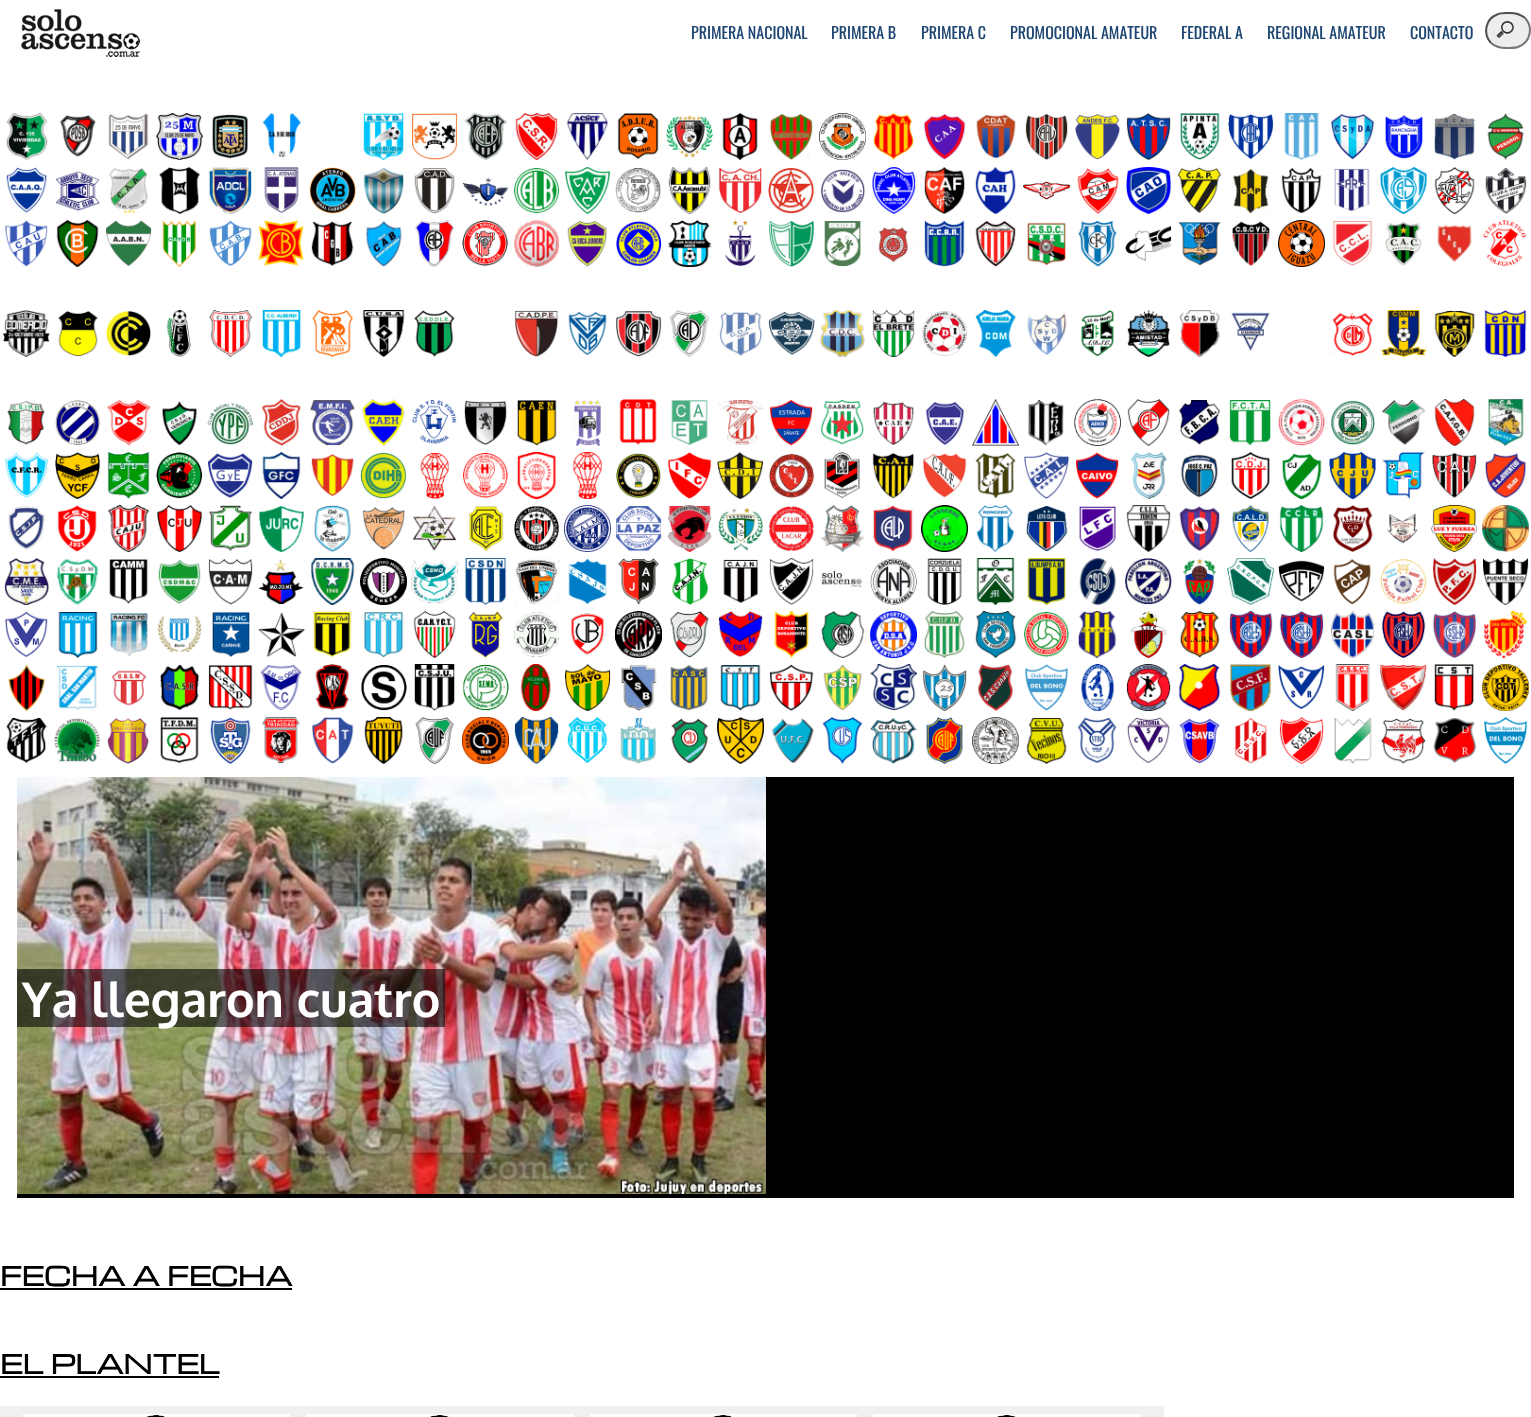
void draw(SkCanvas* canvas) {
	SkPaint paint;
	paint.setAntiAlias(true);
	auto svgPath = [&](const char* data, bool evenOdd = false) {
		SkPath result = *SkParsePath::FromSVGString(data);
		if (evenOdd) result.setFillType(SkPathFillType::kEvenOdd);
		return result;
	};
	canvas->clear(0xffffffff);
	canvas->drawImageRect(SkImages::DeferredFromEncodedData(SkData::MakeFromFileName("img1.png")), SkRect::MakeXYWH(21, 9, 119, 48), SkSamplingOptions());
	SkFont f1(fontMgr->matchFamilyStyle("Oswald", SkFontStyle::Normal()), 16);
	f1.setSubpixel(true);
	paint.setColor(0xff1f4773);
	canvas->drawString("PRIMERA NACIONAL", 691, 39, f1, paint);
	canvas->drawString("PRIMERA B", 831, 39, f1, paint);
	canvas->drawString("PRIMERA C", 921, 39, f1, paint);
	canvas->drawString("PROMOCIONAL AMATEUR", 1010, 39, f1, paint);
	canvas->drawString("FEDERAL A", 1181, 39, f1, paint);
	canvas->drawString("REGIONAL AMATEUR", 1267, 39, f1, paint);
	canvas->drawString("CONTACTO", 1410, 39, f1, paint);
	paint.setColor(0xffededed);
	canvas->drawRoundRect(SkRect::MakeXYWH(1485, 12, 46, 37), 18.5, 18.5, paint);
	canvas->drawImageRect(SkImages::DeferredFromEncodedData(SkData::MakeFromFileName("img2.png")), SkRect::MakeXYWH(1496, 21, 18, 18), SkSamplingOptions());
	paint.setStroke(true);
	paint.setStrokeWidth(2);
	paint.setColor(0xff767676);
	canvas->drawPath(svgPath("M1525 18C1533.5 27 1530.5 42 1519 46.5C1515 48.5 1511 48 1506.5 48C1500.5 48 1495.5 47 1491 43"), paint);
	paint.setColor(0xff4f4f4f);
	canvas->drawPath(svgPath("M1491 43C1482.5 34 1485.5 19 1497 14.5C1501 12.5 1505 13 1509.5 13C1515.5 13 1520.5 14 1525 18"), paint);
	canvas->drawImageRect(SkImages::DeferredFromEncodedData(SkData::MakeFromFileName("img3.png")), SkRect::MakeXYWH(6, 113, 42, 47), SkSamplingOptions());
	canvas->drawImageRect(SkImages::DeferredFromEncodedData(SkData::MakeFromFileName("img4.png")), SkRect::MakeXYWH(59, 115, 37, 42), SkSamplingOptions());
	canvas->drawImageRect(SkImages::DeferredFromEncodedData(SkData::MakeFromFileName("img5.png")), SkRect::MakeXYWH(108, 113, 41, 47), SkSamplingOptions());
	canvas->drawImageRect(SkImages::DeferredFromEncodedData(SkData::MakeFromFileName("img6.png")), SkRect::MakeXYWH(156, 113, 47, 47), SkSamplingOptions());
	canvas->drawImageRect(SkImages::DeferredFromEncodedData(SkData::MakeFromFileName("img7.png")), SkRect::MakeXYWH(212, 114, 36, 45), SkSamplingOptions());
	canvas->drawImageRect(SkImages::DeferredFromEncodedData(SkData::MakeFromFileName("img8.png")), SkRect::MakeXYWH(262, 113, 40, 47), SkSamplingOptions());
	canvas->drawImageRect(SkImages::DeferredFromEncodedData(SkData::MakeFromFileName("img9.png")), SkRect::MakeXYWH(363, 113, 41, 47), SkSamplingOptions());
	canvas->drawImageRect(SkImages::DeferredFromEncodedData(SkData::MakeFromFileName("img10.png")), SkRect::MakeXYWH(412, 113, 46, 47), SkSamplingOptions());
	canvas->drawImageRect(SkImages::DeferredFromEncodedData(SkData::MakeFromFileName("img11.png")), SkRect::MakeXYWH(464, 113, 44, 47), SkSamplingOptions());
	canvas->drawImageRect(SkImages::DeferredFromEncodedData(SkData::MakeFromFileName("img12.png")), SkRect::MakeXYWH(515, 113, 43, 47), SkSamplingOptions());
	canvas->drawImageRect(SkImages::DeferredFromEncodedData(SkData::MakeFromFileName("img13.png")), SkRect::MakeXYWH(566, 113, 43, 47), SkSamplingOptions());
	canvas->drawImageRect(SkImages::DeferredFromEncodedData(SkData::MakeFromFileName("img14.png")), SkRect::MakeXYWH(617, 113, 42, 47), SkSamplingOptions());
	canvas->drawImageRect(SkImages::DeferredFromEncodedData(SkData::MakeFromFileName("img15.png")), SkRect::MakeXYWH(666, 115, 47, 43), SkSamplingOptions());
	canvas->drawImageRect(SkImages::DeferredFromEncodedData(SkData::MakeFromFileName("img16.png")), SkRect::MakeXYWH(722, 113, 36, 47), SkSamplingOptions());
	canvas->drawImageRect(SkImages::DeferredFromEncodedData(SkData::MakeFromFileName("img17.png")), SkRect::MakeXYWH(769, 114, 44, 46), SkSamplingOptions());
	canvas->drawImageRect(SkImages::DeferredFromEncodedData(SkData::MakeFromFileName("img18.png")), SkRect::MakeXYWH(819, 113, 47, 47), SkSamplingOptions());
	canvas->drawImageRect(SkImages::DeferredFromEncodedData(SkData::MakeFromFileName("img19.png")), SkRect::MakeXYWH(873, 113, 41, 47), SkSamplingOptions());
	canvas->drawImageRect(SkImages::DeferredFromEncodedData(SkData::MakeFromFileName("img20.png")), SkRect::MakeXYWH(923, 114, 45, 46), SkSamplingOptions());
	canvas->drawImageRect(SkImages::DeferredFromEncodedData(SkData::MakeFromFileName("img21.png")), SkRect::MakeXYWH(976, 114, 40, 45), SkSamplingOptions());
	canvas->drawImageRect(SkImages::DeferredFromEncodedData(SkData::MakeFromFileName("img22.png")), SkRect::MakeXYWH(1025, 114, 43, 46), SkSamplingOptions());
	canvas->drawImageRect(SkImages::DeferredFromEncodedData(SkData::MakeFromFileName("img23.png")), SkRect::MakeXYWH(1075, 114, 45, 46), SkSamplingOptions());
	canvas->drawImageRect(SkImages::DeferredFromEncodedData(SkData::MakeFromFileName("img24.png")), SkRect::MakeXYWH(1126, 113, 45, 47), SkSamplingOptions());
	canvas->drawImageRect(SkImages::DeferredFromEncodedData(SkData::MakeFromFileName("img25.png")), SkRect::MakeXYWH(1180, 113, 40, 47), SkSamplingOptions());
	canvas->drawImageRect(SkImages::DeferredFromEncodedData(SkData::MakeFromFileName("img26.png")), SkRect::MakeXYWH(1228, 114, 46, 46), SkSamplingOptions());
	canvas->drawImageRect(SkImages::DeferredFromEncodedData(SkData::MakeFromFileName("img27.png")), SkRect::MakeXYWH(1284, 113, 35, 47), SkSamplingOptions());
	canvas->drawImageRect(SkImages::DeferredFromEncodedData(SkData::MakeFromFileName("img28.png")), SkRect::MakeXYWH(1330, 114, 45, 46), SkSamplingOptions());
	canvas->drawImageRect(SkImages::DeferredFromEncodedData(SkData::MakeFromFileName("img29.png")), SkRect::MakeXYWH(1385, 115, 38, 44), SkSamplingOptions());
	canvas->drawImageRect(SkImages::DeferredFromEncodedData(SkData::MakeFromFileName("img30.png")), SkRect::MakeXYWH(1432, 113, 45, 47), SkSamplingOptions());
	canvas->drawImageRect(SkImages::DeferredFromEncodedData(SkData::MakeFromFileName("img31.png")), SkRect::MakeXYWH(1487, 113, 37, 47), SkSamplingOptions());
	canvas->drawImageRect(SkImages::DeferredFromEncodedData(SkData::MakeFromFileName("img32.png")), SkRect::MakeXYWH(6, 167, 41, 46), SkSamplingOptions());
	canvas->drawImageRect(SkImages::DeferredFromEncodedData(SkData::MakeFromFileName("img33.png")), SkRect::MakeXYWH(55, 171, 45, 40), SkSamplingOptions());
	canvas->drawImageRect(SkImages::DeferredFromEncodedData(SkData::MakeFromFileName("img34.png")), SkRect::MakeXYWH(109, 168, 39, 46), SkSamplingOptions());
	canvas->drawImageRect(SkImages::DeferredFromEncodedData(SkData::MakeFromFileName("img35.png")), SkRect::MakeXYWH(159, 167, 42, 47), SkSamplingOptions());
	canvas->drawImageRect(SkImages::DeferredFromEncodedData(SkData::MakeFromFileName("img36.png")), SkRect::MakeXYWH(208, 167, 44, 47), SkSamplingOptions());
	canvas->drawImageRect(SkImages::DeferredFromEncodedData(SkData::MakeFromFileName("img37.png")), SkRect::MakeXYWH(264, 167, 35, 47), SkSamplingOptions());
	canvas->drawImageRect(SkImages::DeferredFromEncodedData(SkData::MakeFromFileName("img38.png")), SkRect::MakeXYWH(309, 167, 47, 47), SkSamplingOptions());
	canvas->drawImageRect(SkImages::DeferredFromEncodedData(SkData::MakeFromFileName("img39.png")), SkRect::MakeXYWH(363, 167, 41, 47), SkSamplingOptions());
	canvas->drawImageRect(SkImages::DeferredFromEncodedData(SkData::MakeFromFileName("img40.png")), SkRect::MakeXYWH(414, 168, 41, 46), SkSamplingOptions());
	canvas->drawImageRect(SkImages::DeferredFromEncodedData(SkData::MakeFromFileName("img41.png")), SkRect::MakeXYWH(462, 177, 47, 29), SkSamplingOptions());
	canvas->drawImageRect(SkImages::DeferredFromEncodedData(SkData::MakeFromFileName("img42.png")), SkRect::MakeXYWH(514, 168, 46, 46), SkSamplingOptions());
	canvas->drawImageRect(SkImages::DeferredFromEncodedData(SkData::MakeFromFileName("img43.png")), SkRect::MakeXYWH(565, 167, 46, 47), SkSamplingOptions());
	canvas->drawImageRect(SkImages::DeferredFromEncodedData(SkData::MakeFromFileName("img44.png")), SkRect::MakeXYWH(615, 168, 47, 45), SkSamplingOptions());
	canvas->drawImageRect(SkImages::DeferredFromEncodedData(SkData::MakeFromFileName("img45.png")), SkRect::MakeXYWH(668, 167, 43, 47), SkSamplingOptions());
	canvas->drawImageRect(SkImages::DeferredFromEncodedData(SkData::MakeFromFileName("img46.png")), SkRect::MakeXYWH(718, 167, 44, 47), SkSamplingOptions());
	canvas->drawImageRect(SkImages::DeferredFromEncodedData(SkData::MakeFromFileName("img47.png")), SkRect::MakeXYWH(768, 168, 47, 46), SkSamplingOptions());
	canvas->drawImageRect(SkImages::DeferredFromEncodedData(SkData::MakeFromFileName("img48.png")), SkRect::MakeXYWH(820, 169, 45, 45), SkSamplingOptions());
	canvas->drawImageRect(SkImages::DeferredFromEncodedData(SkData::MakeFromFileName("img49.png")), SkRect::MakeXYWH(871, 167, 45, 47), SkSamplingOptions());
	canvas->drawImageRect(SkImages::DeferredFromEncodedData(SkData::MakeFromFileName("img50.png")), SkRect::MakeXYWH(924, 167, 41, 47), SkSamplingOptions());
	canvas->drawImageRect(SkImages::DeferredFromEncodedData(SkData::MakeFromFileName("img51.png")), SkRect::MakeXYWH(975, 167, 41, 47), SkSamplingOptions());
	canvas->drawImageRect(SkImages::DeferredFromEncodedData(SkData::MakeFromFileName("img52.png")), SkRect::MakeXYWH(1023, 181, 47, 19), SkSamplingOptions());
	canvas->drawImageRect(SkImages::DeferredFromEncodedData(SkData::MakeFromFileName("img53.png")), SkRect::MakeXYWH(1077, 167, 42, 47), SkSamplingOptions());
	canvas->drawImageRect(SkImages::DeferredFromEncodedData(SkData::MakeFromFileName("img54.png")), SkRect::MakeXYWH(1126, 167, 46, 47), SkSamplingOptions());
	canvas->drawImageRect(SkImages::DeferredFromEncodedData(SkData::MakeFromFileName("img55.png")), SkRect::MakeXYWH(1177, 167, 45, 46), SkSamplingOptions());
	canvas->drawImageRect(SkImages::DeferredFromEncodedData(SkData::MakeFromFileName("img56.png")), SkRect::MakeXYWH(1227, 168, 47, 46), SkSamplingOptions());
	canvas->drawImageRect(SkImages::DeferredFromEncodedData(SkData::MakeFromFileName("img57.png")), SkRect::MakeXYWH(1281, 168, 41, 46), SkSamplingOptions());
	canvas->drawImageRect(SkImages::DeferredFromEncodedData(SkData::MakeFromFileName("img58.png")), SkRect::MakeXYWH(1334, 168, 36, 44), SkSamplingOptions());
	canvas->drawImageRect(SkImages::DeferredFromEncodedData(SkData::MakeFromFileName("img59.png")), SkRect::MakeXYWH(1380, 167, 47, 47), SkSamplingOptions());
	canvas->drawImageRect(SkImages::DeferredFromEncodedData(SkData::MakeFromFileName("img60.png")), SkRect::MakeXYWH(1434, 167, 41, 47), SkSamplingOptions());
	canvas->drawImageRect(SkImages::DeferredFromEncodedData(SkData::MakeFromFileName("img61.png")), SkRect::MakeXYWH(1485, 168, 42, 46), SkSamplingOptions());
	canvas->drawImageRect(SkImages::DeferredFromEncodedData(SkData::MakeFromFileName("img62.png")), SkRect::MakeXYWH(4, 220, 44, 47), SkSamplingOptions());
	canvas->drawImageRect(SkImages::DeferredFromEncodedData(SkData::MakeFromFileName("img63.png")), SkRect::MakeXYWH(56, 220, 43, 47), SkSamplingOptions());
	canvas->drawImageRect(SkImages::DeferredFromEncodedData(SkData::MakeFromFileName("img64.png")), SkRect::MakeXYWH(106, 220, 46, 47), SkSamplingOptions());
	canvas->drawImageRect(SkImages::DeferredFromEncodedData(SkData::MakeFromFileName("img65.png")), SkRect::MakeXYWH(162, 220, 34, 47), SkSamplingOptions());
	canvas->drawImageRect(SkImages::DeferredFromEncodedData(SkData::MakeFromFileName("img66.png")), SkRect::MakeXYWH(209, 220, 43, 47), SkSamplingOptions());
	canvas->drawImageRect(SkImages::DeferredFromEncodedData(SkData::MakeFromFileName("img67.png")), SkRect::MakeXYWH(258, 220, 46, 46), SkSamplingOptions());
	canvas->drawImageRect(SkImages::DeferredFromEncodedData(SkData::MakeFromFileName("img68.png")), SkRect::MakeXYWH(311, 221, 43, 45), SkSamplingOptions());
	canvas->drawImageRect(SkImages::DeferredFromEncodedData(SkData::MakeFromFileName("img69.png")), SkRect::MakeXYWH(361, 221, 41, 46), SkSamplingOptions());
	canvas->drawImageRect(SkImages::DeferredFromEncodedData(SkData::MakeFromFileName("img70.png")), SkRect::MakeXYWH(414, 220, 41, 47), SkSamplingOptions());
	canvas->drawImageRect(SkImages::DeferredFromEncodedData(SkData::MakeFromFileName("img71.png")), SkRect::MakeXYWH(462, 220, 47, 47), SkSamplingOptions());
	canvas->drawImageRect(SkImages::DeferredFromEncodedData(SkData::MakeFromFileName("img72.png")), SkRect::MakeXYWH(514, 220, 46, 47), SkSamplingOptions());
	canvas->drawImageRect(SkImages::DeferredFromEncodedData(SkData::MakeFromFileName("img73.png")), SkRect::MakeXYWH(567, 221, 41, 46), SkSamplingOptions());
	canvas->drawImageRect(SkImages::DeferredFromEncodedData(SkData::MakeFromFileName("img74.png")), SkRect::MakeXYWH(616, 221, 46, 46), SkSamplingOptions());
	canvas->drawImageRect(SkImages::DeferredFromEncodedData(SkData::MakeFromFileName("img75.png")), SkRect::MakeXYWH(668, 220, 44, 47), SkSamplingOptions());
	canvas->drawImageRect(SkImages::DeferredFromEncodedData(SkData::MakeFromFileName("img76.png")), SkRect::MakeXYWH(724, 220, 32, 47), SkSamplingOptions());
	canvas->drawImageRect(SkImages::DeferredFromEncodedData(SkData::MakeFromFileName("img77.png")), SkRect::MakeXYWH(769, 220, 46, 47), SkSamplingOptions());
	canvas->drawImageRect(SkImages::DeferredFromEncodedData(SkData::MakeFromFileName("img78.png")), SkRect::MakeXYWH(824, 221, 37, 46), SkSamplingOptions());
	canvas->drawImageRect(SkImages::DeferredFromEncodedData(SkData::MakeFromFileName("img79.png")), SkRect::MakeXYWH(878, 227, 39, 36), SkSamplingOptions());
	canvas->drawImageRect(SkImages::DeferredFromEncodedData(SkData::MakeFromFileName("img80.png")), SkRect::MakeXYWH(924, 220, 41, 47), SkSamplingOptions());
	canvas->drawImageRect(SkImages::DeferredFromEncodedData(SkData::MakeFromFileName("img81.png")), SkRect::MakeXYWH(975, 221, 41, 46), SkSamplingOptions());
	canvas->drawImageRect(SkImages::DeferredFromEncodedData(SkData::MakeFromFileName("img82.png")), SkRect::MakeXYWH(1024, 222, 44, 44), SkSamplingOptions());
	canvas->drawImageRect(SkImages::DeferredFromEncodedData(SkData::MakeFromFileName("img83.png")), SkRect::MakeXYWH(1078, 220, 39, 47), SkSamplingOptions());
	canvas->drawImageRect(SkImages::DeferredFromEncodedData(SkData::MakeFromFileName("img84.png")), SkRect::MakeXYWH(1125, 225, 47, 36), SkSamplingOptions());
	canvas->drawImageRect(SkImages::DeferredFromEncodedData(SkData::MakeFromFileName("img85.png")), SkRect::MakeXYWH(1178, 221, 43, 45), SkSamplingOptions());
	canvas->drawImageRect(SkImages::DeferredFromEncodedData(SkData::MakeFromFileName("img86.png")), SkRect::MakeXYWH(1231, 220, 39, 46), SkSamplingOptions());
	canvas->drawImageRect(SkImages::DeferredFromEncodedData(SkData::MakeFromFileName("img87.png")), SkRect::MakeXYWH(1278, 220, 47, 47), SkSamplingOptions());
	canvas->drawImageRect(SkImages::DeferredFromEncodedData(SkData::MakeFromFileName("img88.png")), SkRect::MakeXYWH(1332, 221, 41, 45), SkSamplingOptions());
	canvas->drawImageRect(SkImages::DeferredFromEncodedData(SkData::MakeFromFileName("img89.png")), SkRect::MakeXYWH(1385, 221, 37, 45), SkSamplingOptions());
	canvas->drawImageRect(SkImages::DeferredFromEncodedData(SkData::MakeFromFileName("img90.png")), SkRect::MakeXYWH(1437, 224, 35, 39), SkSamplingOptions());
	canvas->drawImageRect(SkImages::DeferredFromEncodedData(SkData::MakeFromFileName("img91.png")), SkRect::MakeXYWH(1483, 220, 44, 47), SkSamplingOptions());
	canvas->drawImageRect(SkImages::DeferredFromEncodedData(SkData::MakeFromFileName("img92.png")), SkRect::MakeXYWH(3, 310, 47, 47), SkSamplingOptions());
	canvas->drawImageRect(SkImages::DeferredFromEncodedData(SkData::MakeFromFileName("img93.png")), SkRect::MakeXYWH(58, 311, 40, 46), SkSamplingOptions());
	canvas->drawImageRect(SkImages::DeferredFromEncodedData(SkData::MakeFromFileName("img94.png")), SkRect::MakeXYWH(106, 311, 45, 45), SkSamplingOptions());
	canvas->drawImageRect(SkImages::DeferredFromEncodedData(SkData::MakeFromFileName("img95.png")), SkRect::MakeXYWH(166, 310, 25, 47), SkSamplingOptions());
	canvas->drawImageRect(SkImages::DeferredFromEncodedData(SkData::MakeFromFileName("img96.png")), SkRect::MakeXYWH(209, 310, 44, 47), SkSamplingOptions());
	canvas->drawImageRect(SkImages::DeferredFromEncodedData(SkData::MakeFromFileName("img97.png")), SkRect::MakeXYWH(262, 310, 39, 47), SkSamplingOptions());
	canvas->drawImageRect(SkImages::DeferredFromEncodedData(SkData::MakeFromFileName("img98.png")), SkRect::MakeXYWH(312, 310, 42, 47), SkSamplingOptions());
	canvas->drawImageRect(SkImages::DeferredFromEncodedData(SkData::MakeFromFileName("img99.png")), SkRect::MakeXYWH(362, 310, 43, 47), SkSamplingOptions());
	canvas->drawImageRect(SkImages::DeferredFromEncodedData(SkData::MakeFromFileName("img100.png")), SkRect::MakeXYWH(414, 310, 41, 47), SkSamplingOptions());
	canvas->drawImageRect(SkImages::DeferredFromEncodedData(SkData::MakeFromFileName("img101.png")), SkRect::MakeXYWH(514, 310, 45, 47), SkSamplingOptions());
	canvas->drawImageRect(SkImages::DeferredFromEncodedData(SkData::MakeFromFileName("img102.png")), SkRect::MakeXYWH(568, 311, 39, 45), SkSamplingOptions());
	canvas->drawImageRect(SkImages::DeferredFromEncodedData(SkData::MakeFromFileName("img103.png")), SkRect::MakeXYWH(616, 311, 46, 46), SkSamplingOptions());
	canvas->drawImageRect(SkImages::DeferredFromEncodedData(SkData::MakeFromFileName("img104.png")), SkRect::MakeXYWH(669, 310, 41, 47), SkSamplingOptions());
	canvas->drawImageRect(SkImages::DeferredFromEncodedData(SkData::MakeFromFileName("img105.png")), SkRect::MakeXYWH(719, 312, 44, 44), SkSamplingOptions());
	canvas->drawImageRect(SkImages::DeferredFromEncodedData(SkData::MakeFromFileName("img106.png")), SkRect::MakeXYWH(768, 311, 47, 45), SkSamplingOptions());
	canvas->drawImageRect(SkImages::DeferredFromEncodedData(SkData::MakeFromFileName("img107.png")), SkRect::MakeXYWH(820, 310, 45, 47), SkSamplingOptions());
	canvas->drawImageRect(SkImages::DeferredFromEncodedData(SkData::MakeFromFileName("img108.png")), SkRect::MakeXYWH(872, 310, 43, 47), SkSamplingOptions());
	canvas->drawImageRect(SkImages::DeferredFromEncodedData(SkData::MakeFromFileName("img109.png")), SkRect::MakeXYWH(922, 311, 45, 45), SkSamplingOptions());
	canvas->drawImageRect(SkImages::DeferredFromEncodedData(SkData::MakeFromFileName("img110.png")), SkRect::MakeXYWH(975, 310, 41, 47), SkSamplingOptions());
	canvas->drawImageRect(SkImages::DeferredFromEncodedData(SkData::MakeFromFileName("img111.png")), SkRect::MakeXYWH(1027, 311, 40, 45), SkSamplingOptions());
	canvas->drawImageRect(SkImages::DeferredFromEncodedData(SkData::MakeFromFileName("img112.png")), SkRect::MakeXYWH(1081, 310, 33, 47), SkSamplingOptions());
	canvas->drawImageRect(SkImages::DeferredFromEncodedData(SkData::MakeFromFileName("img113.png")), SkRect::MakeXYWH(1127, 310, 44, 47), SkSamplingOptions());
	canvas->drawImageRect(SkImages::DeferredFromEncodedData(SkData::MakeFromFileName("img114.png")), SkRect::MakeXYWH(1179, 310, 41, 47), SkSamplingOptions());
	canvas->drawImageRect(SkImages::DeferredFromEncodedData(SkData::MakeFromFileName("img115.png")), SkRect::MakeXYWH(1231, 312, 39, 40), SkSamplingOptions());
	canvas->drawImageRect(SkImages::DeferredFromEncodedData(SkData::MakeFromFileName("img116.png")), SkRect::MakeXYWH(1329, 312, 46, 45), SkSamplingOptions());
	canvas->drawImageRect(SkImages::DeferredFromEncodedData(SkData::MakeFromFileName("img117.png")), SkRect::MakeXYWH(1380, 310, 47, 47), SkSamplingOptions());
	canvas->drawImageRect(SkImages::DeferredFromEncodedData(SkData::MakeFromFileName("img118.png")), SkRect::MakeXYWH(1434, 310, 41, 47), SkSamplingOptions());
	canvas->drawImageRect(SkImages::DeferredFromEncodedData(SkData::MakeFromFileName("img119.png")), SkRect::MakeXYWH(1484, 310, 43, 47), SkSamplingOptions());
	canvas->drawImageRect(SkImages::DeferredFromEncodedData(SkData::MakeFromFileName("img120.png")), SkRect::MakeXYWH(7, 400, 38, 45), SkSamplingOptions());
	canvas->drawImageRect(SkImages::DeferredFromEncodedData(SkData::MakeFromFileName("img121.png")), SkRect::MakeXYWH(55, 400, 45, 46), SkSamplingOptions());
	canvas->drawImageRect(SkImages::DeferredFromEncodedData(SkData::MakeFromFileName("img122.png")), SkRect::MakeXYWH(107, 400, 44, 46), SkSamplingOptions());
	canvas->drawImageRect(SkImages::DeferredFromEncodedData(SkData::MakeFromFileName("img123.png")), SkRect::MakeXYWH(162, 401, 35, 45), SkSamplingOptions());
	canvas->drawImageRect(SkImages::DeferredFromEncodedData(SkData::MakeFromFileName("img124.png")), SkRect::MakeXYWH(207, 402, 47, 43), SkSamplingOptions());
	canvas->drawImageRect(SkImages::DeferredFromEncodedData(SkData::MakeFromFileName("img125.png")), SkRect::MakeXYWH(261, 399, 40, 47), SkSamplingOptions());
	canvas->drawImageRect(SkImages::DeferredFromEncodedData(SkData::MakeFromFileName("img126.png")), SkRect::MakeXYWH(310, 400, 45, 46), SkSamplingOptions());
	canvas->drawImageRect(SkImages::DeferredFromEncodedData(SkData::MakeFromFileName("img127.png")), SkRect::MakeXYWH(362, 399, 43, 47), SkSamplingOptions());
	canvas->drawImageRect(SkImages::DeferredFromEncodedData(SkData::MakeFromFileName("img128.png")), SkRect::MakeXYWH(412, 400, 45, 45), SkSamplingOptions());
	canvas->drawImageRect(SkImages::DeferredFromEncodedData(SkData::MakeFromFileName("img129.png")), SkRect::MakeXYWH(464, 400, 43, 46), SkSamplingOptions());
	canvas->drawImageRect(SkImages::DeferredFromEncodedData(SkData::MakeFromFileName("img130.png")), SkRect::MakeXYWH(517, 400, 40, 46), SkSamplingOptions());
	canvas->drawImageRect(SkImages::DeferredFromEncodedData(SkData::MakeFromFileName("img131.png")), SkRect::MakeXYWH(574, 400, 27, 46), SkSamplingOptions());
	canvas->drawImageRect(SkImages::DeferredFromEncodedData(SkData::MakeFromFileName("img132.png")), SkRect::MakeXYWH(619, 399, 38, 46), SkSamplingOptions());
	canvas->drawImageRect(SkImages::DeferredFromEncodedData(SkData::MakeFromFileName("img133.png")), SkRect::MakeXYWH(671, 400, 37, 46), SkSamplingOptions());
	canvas->drawImageRect(SkImages::DeferredFromEncodedData(SkData::MakeFromFileName("img134.png")), SkRect::MakeXYWH(718, 400, 46, 45), SkSamplingOptions());
	canvas->drawImageRect(SkImages::DeferredFromEncodedData(SkData::MakeFromFileName("img135.png")), SkRect::MakeXYWH(769, 399, 44, 47), SkSamplingOptions());
	canvas->drawImageRect(SkImages::DeferredFromEncodedData(SkData::MakeFromFileName("img136.png")), SkRect::MakeXYWH(820, 399, 44, 46), SkSamplingOptions());
	canvas->drawImageRect(SkImages::DeferredFromEncodedData(SkData::MakeFromFileName("img137.png")), SkRect::MakeXYWH(873, 401, 41, 45), SkSamplingOptions());
	canvas->drawImageRect(SkImages::DeferredFromEncodedData(SkData::MakeFromFileName("img138.png")), SkRect::MakeXYWH(925, 401, 40, 44), SkSamplingOptions());
	canvas->drawImageRect(SkImages::DeferredFromEncodedData(SkData::MakeFromFileName("img139.png")), SkRect::MakeXYWH(972, 399, 47, 47), SkSamplingOptions());
	canvas->drawImageRect(SkImages::DeferredFromEncodedData(SkData::MakeFromFileName("img140.png")), SkRect::MakeXYWH(1028, 399, 36, 47), SkSamplingOptions());
	canvas->drawImageRect(SkImages::DeferredFromEncodedData(SkData::MakeFromFileName("img141.png")), SkRect::MakeXYWH(1074, 399, 47, 47), SkSamplingOptions());
	canvas->drawImageRect(SkImages::DeferredFromEncodedData(SkData::MakeFromFileName("img142.png")), SkRect::MakeXYWH(1127, 399, 43, 47), SkSamplingOptions());
	canvas->drawImageRect(SkImages::DeferredFromEncodedData(SkData::MakeFromFileName("img143.png")), SkRect::MakeXYWH(1178, 400, 43, 45), SkSamplingOptions());
	canvas->drawImageRect(SkImages::DeferredFromEncodedData(SkData::MakeFromFileName("img144.png")), SkRect::MakeXYWH(1229, 400, 42, 46), SkSamplingOptions());
	canvas->drawImageRect(SkImages::DeferredFromEncodedData(SkData::MakeFromFileName("img145.png")), SkRect::MakeXYWH(1278, 399, 47, 47), SkSamplingOptions());
	canvas->drawImageRect(SkImages::DeferredFromEncodedData(SkData::MakeFromFileName("img146.png")), SkRect::MakeXYWH(1330, 400, 45, 45), SkSamplingOptions());
	canvas->drawImageRect(SkImages::DeferredFromEncodedData(SkData::MakeFromFileName("img147.png")), SkRect::MakeXYWH(1381, 400, 45, 46), SkSamplingOptions());
	canvas->drawImageRect(SkImages::DeferredFromEncodedData(SkData::MakeFromFileName("img148.png")), SkRect::MakeXYWH(1434, 399, 41, 47), SkSamplingOptions());
	canvas->drawImageRect(SkImages::DeferredFromEncodedData(SkData::MakeFromFileName("img149.png")), SkRect::MakeXYWH(1488, 399, 36, 47), SkSamplingOptions());
	canvas->drawImageRect(SkImages::DeferredFromEncodedData(SkData::MakeFromFileName("img150.png")), SkRect::MakeXYWH(4, 452, 45, 46), SkSamplingOptions());
	canvas->drawImageRect(SkImages::DeferredFromEncodedData(SkData::MakeFromFileName("img151.png")), SkRect::MakeXYWH(55, 452, 46, 47), SkSamplingOptions());
	canvas->drawImageRect(SkImages::DeferredFromEncodedData(SkData::MakeFromFileName("img152.png")), SkRect::MakeXYWH(107, 452, 43, 47), SkSamplingOptions());
	canvas->drawImageRect(SkImages::DeferredFromEncodedData(SkData::MakeFromFileName("img153.png")), SkRect::MakeXYWH(156, 452, 47, 47), SkSamplingOptions());
	canvas->drawImageRect(SkImages::DeferredFromEncodedData(SkData::MakeFromFileName("img154.png")), SkRect::MakeXYWH(208, 453, 45, 45), SkSamplingOptions());
	canvas->drawImageRect(SkImages::DeferredFromEncodedData(SkData::MakeFromFileName("img155.png")), SkRect::MakeXYWH(262, 452, 39, 47), SkSamplingOptions());
	canvas->drawImageRect(SkImages::DeferredFromEncodedData(SkData::MakeFromFileName("img156.png")), SkRect::MakeXYWH(311, 453, 43, 44), SkSamplingOptions());
	canvas->drawImageRect(SkImages::DeferredFromEncodedData(SkData::MakeFromFileName("img157.png")), SkRect::MakeXYWH(360, 453, 47, 46), SkSamplingOptions());
	canvas->drawImageRect(SkImages::DeferredFromEncodedData(SkData::MakeFromFileName("img158.png")), SkRect::MakeXYWH(420, 453, 29, 46), SkSamplingOptions());
	canvas->drawImageRect(SkImages::DeferredFromEncodedData(SkData::MakeFromFileName("img159.png")), SkRect::MakeXYWH(463, 453, 46, 46), SkSamplingOptions());
	canvas->drawImageRect(SkImages::DeferredFromEncodedData(SkData::MakeFromFileName("img160.png")), SkRect::MakeXYWH(517, 452, 40, 47), SkSamplingOptions());
	canvas->drawImageRect(SkImages::DeferredFromEncodedData(SkData::MakeFromFileName("img161.png")), SkRect::MakeXYWH(573, 452, 29, 47), SkSamplingOptions());
	canvas->drawImageRect(SkImages::DeferredFromEncodedData(SkData::MakeFromFileName("img162.png")), SkRect::MakeXYWH(616, 453, 45, 46), SkSamplingOptions());
	canvas->drawImageRect(SkImages::DeferredFromEncodedData(SkData::MakeFromFileName("img163.png")), SkRect::MakeXYWH(667, 452, 45, 47), SkSamplingOptions());
	canvas->drawImageRect(SkImages::DeferredFromEncodedData(SkData::MakeFromFileName("img164.png")), SkRect::MakeXYWH(717, 452, 47, 47), SkSamplingOptions());
	canvas->drawImageRect(SkImages::DeferredFromEncodedData(SkData::MakeFromFileName("img165.png")), SkRect::MakeXYWH(769, 453, 46, 46), SkSamplingOptions());
	canvas->drawImageRect(SkImages::DeferredFromEncodedData(SkData::MakeFromFileName("img166.png")), SkRect::MakeXYWH(824, 452, 36, 47), SkSamplingOptions());
	canvas->drawImageRect(SkImages::DeferredFromEncodedData(SkData::MakeFromFileName("img167.png")), SkRect::MakeXYWH(872, 453, 43, 46), SkSamplingOptions());
	canvas->drawImageRect(SkImages::DeferredFromEncodedData(SkData::MakeFromFileName("img168.png")), SkRect::MakeXYWH(922, 453, 45, 45), SkSamplingOptions());
	canvas->drawImageRect(SkImages::DeferredFromEncodedData(SkData::MakeFromFileName("img169.png")), SkRect::MakeXYWH(975, 453, 41, 46), SkSamplingOptions());
	canvas->drawImageRect(SkImages::DeferredFromEncodedData(SkData::MakeFromFileName("img170.png")), SkRect::MakeXYWH(1024, 452, 46, 47), SkSamplingOptions());
	canvas->drawImageRect(SkImages::DeferredFromEncodedData(SkData::MakeFromFileName("img171.png")), SkRect::MakeXYWH(1075, 452, 44, 47), SkSamplingOptions());
	canvas->drawImageRect(SkImages::DeferredFromEncodedData(SkData::MakeFromFileName("img172.png")), SkRect::MakeXYWH(1125, 452, 47, 47), SkSamplingOptions());
	canvas->drawImageRect(SkImages::DeferredFromEncodedData(SkData::MakeFromFileName("img173.png")), SkRect::MakeXYWH(1180, 454, 38, 44), SkSamplingOptions());
	canvas->drawImageRect(SkImages::DeferredFromEncodedData(SkData::MakeFromFileName("img174.png")), SkRect::MakeXYWH(1231, 452, 39, 47), SkSamplingOptions());
	canvas->drawImageRect(SkImages::DeferredFromEncodedData(SkData::MakeFromFileName("img175.png")), SkRect::MakeXYWH(1282, 453, 40, 46), SkSamplingOptions());
	canvas->drawImageRect(SkImages::DeferredFromEncodedData(SkData::MakeFromFileName("img176.png")), SkRect::MakeXYWH(1329, 452, 47, 47), SkSamplingOptions());
	canvas->drawImageRect(SkImages::DeferredFromEncodedData(SkData::MakeFromFileName("img177.png")), SkRect::MakeXYWH(1382, 452, 43, 47), SkSamplingOptions());
	canvas->drawImageRect(SkImages::DeferredFromEncodedData(SkData::MakeFromFileName("img178.png")), SkRect::MakeXYWH(1432, 453, 45, 45), SkSamplingOptions());
	canvas->drawImageRect(SkImages::DeferredFromEncodedData(SkData::MakeFromFileName("img179.png")), SkRect::MakeXYWH(1485, 453, 42, 46), SkSamplingOptions());
	canvas->drawImageRect(SkImages::DeferredFromEncodedData(SkData::MakeFromFileName("img180.png")), SkRect::MakeXYWH(7, 506, 38, 44), SkSamplingOptions());
	canvas->drawImageRect(SkImages::DeferredFromEncodedData(SkData::MakeFromFileName("img181.png")), SkRect::MakeXYWH(57, 505, 40, 47), SkSamplingOptions());
	canvas->drawImageRect(SkImages::DeferredFromEncodedData(SkData::MakeFromFileName("img182.png")), SkRect::MakeXYWH(107, 505, 43, 47), SkSamplingOptions());
	canvas->drawImageRect(SkImages::DeferredFromEncodedData(SkData::MakeFromFileName("img183.png")), SkRect::MakeXYWH(157, 505, 46, 47), SkSamplingOptions());
	canvas->drawImageRect(SkImages::DeferredFromEncodedData(SkData::MakeFromFileName("img184.png")), SkRect::MakeXYWH(209, 505, 44, 47), SkSamplingOptions());
	canvas->drawImageRect(SkImages::DeferredFromEncodedData(SkData::MakeFromFileName("img185.png")), SkRect::MakeXYWH(259, 506, 46, 46), SkSamplingOptions());
	canvas->drawImageRect(SkImages::DeferredFromEncodedData(SkData::MakeFromFileName("img186.png")), SkRect::MakeXYWH(314, 505, 37, 47), SkSamplingOptions());
	canvas->drawImageRect(SkImages::DeferredFromEncodedData(SkData::MakeFromFileName("img187.png")), SkRect::MakeXYWH(362, 506, 43, 44), SkSamplingOptions());
	canvas->drawImageRect(SkImages::DeferredFromEncodedData(SkData::MakeFromFileName("img188.png")), SkRect::MakeXYWH(412, 505, 45, 47), SkSamplingOptions());
	canvas->drawImageRect(SkImages::DeferredFromEncodedData(SkData::MakeFromFileName("img189.png")), SkRect::MakeXYWH(469, 506, 35, 45), SkSamplingOptions());
	canvas->drawImageRect(SkImages::DeferredFromEncodedData(SkData::MakeFromFileName("img190.png")), SkRect::MakeXYWH(514, 506, 46, 46), SkSamplingOptions());
	canvas->drawImageRect(SkImages::DeferredFromEncodedData(SkData::MakeFromFileName("img191.png")), SkRect::MakeXYWH(564, 505, 47, 47), SkSamplingOptions());
	canvas->drawImageRect(SkImages::DeferredFromEncodedData(SkData::MakeFromFileName("img192.png")), SkRect::MakeXYWH(616, 506, 46, 46), SkSamplingOptions());
	canvas->drawImageRect(SkImages::DeferredFromEncodedData(SkData::MakeFromFileName("img193.png")), SkRect::MakeXYWH(667, 505, 45, 47), SkSamplingOptions());
	canvas->drawImageRect(SkImages::DeferredFromEncodedData(SkData::MakeFromFileName("img194.png")), SkRect::MakeXYWH(718, 507, 46, 45), SkSamplingOptions());
	canvas->drawImageRect(SkImages::DeferredFromEncodedData(SkData::MakeFromFileName("img195.png")), SkRect::MakeXYWH(769, 506, 45, 46), SkSamplingOptions());
	canvas->drawImageRect(SkImages::DeferredFromEncodedData(SkData::MakeFromFileName("img196.png")), SkRect::MakeXYWH(820, 505, 44, 47), SkSamplingOptions());
	canvas->drawImageRect(SkImages::DeferredFromEncodedData(SkData::MakeFromFileName("img197.png")), SkRect::MakeXYWH(873, 505, 40, 47), SkSamplingOptions());
	canvas->drawImageRect(SkImages::DeferredFromEncodedData(SkData::MakeFromFileName("img198.png")), SkRect::MakeXYWH(921, 505, 47, 47), SkSamplingOptions());
	canvas->drawImageRect(SkImages::DeferredFromEncodedData(SkData::MakeFromFileName("img199.png")), SkRect::MakeXYWH(976, 505, 39, 47), SkSamplingOptions());
	canvas->drawImageRect(SkImages::DeferredFromEncodedData(SkData::MakeFromFileName("img200.png")), SkRect::MakeXYWH(1026, 506, 42, 46), SkSamplingOptions());
	canvas->drawImageRect(SkImages::DeferredFromEncodedData(SkData::MakeFromFileName("img201.png")), SkRect::MakeXYWH(1079, 506, 37, 46), SkSamplingOptions());
	canvas->drawImageRect(SkImages::DeferredFromEncodedData(SkData::MakeFromFileName("img202.png")), SkRect::MakeXYWH(1126, 505, 45, 47), SkSamplingOptions());
	canvas->drawImageRect(SkImages::DeferredFromEncodedData(SkData::MakeFromFileName("img203.png")), SkRect::MakeXYWH(1179, 506, 41, 46), SkSamplingOptions());
	canvas->drawImageRect(SkImages::DeferredFromEncodedData(SkData::MakeFromFileName("img204.png")), SkRect::MakeXYWH(1232, 505, 37, 47), SkSamplingOptions());
	canvas->drawImageRect(SkImages::DeferredFromEncodedData(SkData::MakeFromFileName("img205.png")), SkRect::MakeXYWH(1279, 505, 45, 47), SkSamplingOptions());
	canvas->drawImageRect(SkImages::DeferredFromEncodedData(SkData::MakeFromFileName("img206.png")), SkRect::MakeXYWH(1332, 505, 41, 47), SkSamplingOptions());
	canvas->drawImageRect(SkImages::DeferredFromEncodedData(SkData::MakeFromFileName("img207.png")), SkRect::MakeXYWH(1387, 513, 37, 31), SkSamplingOptions());
	canvas->drawImageRect(SkImages::DeferredFromEncodedData(SkData::MakeFromFileName("img208.png")), SkRect::MakeXYWH(1431, 505, 47, 47), SkSamplingOptions());
	canvas->drawImageRect(SkImages::DeferredFromEncodedData(SkData::MakeFromFileName("img209.png")), SkRect::MakeXYWH(1482, 505, 47, 47), SkSamplingOptions());
	canvas->drawImageRect(SkImages::DeferredFromEncodedData(SkData::MakeFromFileName("img210.png")), SkRect::MakeXYWH(4, 558, 46, 47), SkSamplingOptions());
	canvas->drawImageRect(SkImages::DeferredFromEncodedData(SkData::MakeFromFileName("img211.png")), SkRect::MakeXYWH(56, 558, 43, 47), SkSamplingOptions());
	canvas->drawImageRect(SkImages::DeferredFromEncodedData(SkData::MakeFromFileName("img212.png")), SkRect::MakeXYWH(109, 559, 39, 45), SkSamplingOptions());
	canvas->drawImageRect(SkImages::DeferredFromEncodedData(SkData::MakeFromFileName("img213.png")), SkRect::MakeXYWH(157, 558, 44, 46), SkSamplingOptions());
	canvas->drawImageRect(SkImages::DeferredFromEncodedData(SkData::MakeFromFileName("img214.png")), SkRect::MakeXYWH(208, 559, 45, 46), SkSamplingOptions());
	canvas->drawImageRect(SkImages::DeferredFromEncodedData(SkData::MakeFromFileName("img215.png")), SkRect::MakeXYWH(258, 559, 46, 46), SkSamplingOptions());
	canvas->drawImageRect(SkImages::DeferredFromEncodedData(SkData::MakeFromFileName("img216.png")), SkRect::MakeXYWH(310, 558, 45, 47), SkSamplingOptions());
	canvas->drawImageRect(SkImages::DeferredFromEncodedData(SkData::MakeFromFileName("img217.png")), SkRect::MakeXYWH(360, 558, 47, 47), SkSamplingOptions());
	canvas->drawImageRect(SkImages::DeferredFromEncodedData(SkData::MakeFromFileName("img218.png")), SkRect::MakeXYWH(411, 560, 47, 44), SkSamplingOptions());
	canvas->drawImageRect(SkImages::DeferredFromEncodedData(SkData::MakeFromFileName("img219.png")), SkRect::MakeXYWH(464, 558, 43, 47), SkSamplingOptions());
	canvas->drawImageRect(SkImages::DeferredFromEncodedData(SkData::MakeFromFileName("img220.png")), SkRect::MakeXYWH(513, 558, 47, 47), SkSamplingOptions());
	canvas->drawImageRect(SkImages::DeferredFromEncodedData(SkData::MakeFromFileName("img221.png")), SkRect::MakeXYWH(568, 559, 39, 46), SkSamplingOptions());
	canvas->drawImageRect(SkImages::DeferredFromEncodedData(SkData::MakeFromFileName("img222.png")), SkRect::MakeXYWH(618, 558, 42, 47), SkSamplingOptions());
	canvas->drawImageRect(SkImages::DeferredFromEncodedData(SkData::MakeFromFileName("img223.png")), SkRect::MakeXYWH(671, 558, 38, 47), SkSamplingOptions());
	canvas->drawImageRect(SkImages::DeferredFromEncodedData(SkData::MakeFromFileName("img224.png")), SkRect::MakeXYWH(723, 559, 36, 45), SkSamplingOptions());
	canvas->drawImageRect(SkImages::DeferredFromEncodedData(SkData::MakeFromFileName("img225.png")), SkRect::MakeXYWH(769, 558, 45, 47), SkSamplingOptions());
	canvas->drawImageRect(SkImages::DeferredFromEncodedData(SkData::MakeFromFileName("img226.png")), SkRect::MakeXYWH(821, 570, 42, 18), SkSamplingOptions());
	canvas->drawImageRect(SkImages::DeferredFromEncodedData(SkData::MakeFromFileName("img227.png")), SkRect::MakeXYWH(870, 558, 47, 47), SkSamplingOptions());
	canvas->drawImageRect(SkImages::DeferredFromEncodedData(SkData::MakeFromFileName("img228.png")), SkRect::MakeXYWH(927, 558, 35, 47), SkSamplingOptions());
	canvas->drawImageRect(SkImages::DeferredFromEncodedData(SkData::MakeFromFileName("img229.png")), SkRect::MakeXYWH(976, 558, 39, 47), SkSamplingOptions());
	canvas->drawImageRect(SkImages::DeferredFromEncodedData(SkData::MakeFromFileName("img230.png")), SkRect::MakeXYWH(1027, 558, 39, 47), SkSamplingOptions());
	canvas->drawImageRect(SkImages::DeferredFromEncodedData(SkData::MakeFromFileName("img231.png")), SkRect::MakeXYWH(1079, 558, 38, 47), SkSamplingOptions());
	canvas->drawImageRect(SkImages::DeferredFromEncodedData(SkData::MakeFromFileName("img232.png")), SkRect::MakeXYWH(1125, 558, 47, 47), SkSamplingOptions());
	canvas->drawImageRect(SkImages::DeferredFromEncodedData(SkData::MakeFromFileName("img233.png")), SkRect::MakeXYWH(1182, 558, 35, 47), SkSamplingOptions());
	canvas->drawImageRect(SkImages::DeferredFromEncodedData(SkData::MakeFromFileName("img234.png")), SkRect::MakeXYWH(1227, 558, 47, 47), SkSamplingOptions());
	canvas->drawImageRect(SkImages::DeferredFromEncodedData(SkData::MakeFromFileName("img235.png")), SkRect::MakeXYWH(1278, 560, 47, 42), SkSamplingOptions());
	canvas->drawImageRect(SkImages::DeferredFromEncodedData(SkData::MakeFromFileName("img236.png")), SkRect::MakeXYWH(1333, 559, 38, 46), SkSamplingOptions());
	canvas->drawImageRect(SkImages::DeferredFromEncodedData(SkData::MakeFromFileName("img237.png")), SkRect::MakeXYWH(1380, 559, 47, 46), SkSamplingOptions());
	canvas->drawImageRect(SkImages::DeferredFromEncodedData(SkData::MakeFromFileName("img238.png")), SkRect::MakeXYWH(1432, 558, 45, 47), SkSamplingOptions());
	canvas->drawImageRect(SkImages::DeferredFromEncodedData(SkData::MakeFromFileName("img239.png")), SkRect::MakeXYWH(1483, 558, 46, 47), SkSamplingOptions());
	canvas->drawImageRect(SkImages::DeferredFromEncodedData(SkData::MakeFromFileName("img240.png")), SkRect::MakeXYWH(4, 611, 44, 47), SkSamplingOptions());
	canvas->drawImageRect(SkImages::DeferredFromEncodedData(SkData::MakeFromFileName("img241.png")), SkRect::MakeXYWH(58, 611, 40, 47), SkSamplingOptions());
	canvas->drawImageRect(SkImages::DeferredFromEncodedData(SkData::MakeFromFileName("img242.png")), SkRect::MakeXYWH(110, 612, 38, 45), SkSamplingOptions());
	canvas->drawImageRect(SkImages::DeferredFromEncodedData(SkData::MakeFromFileName("img243.png")), SkRect::MakeXYWH(157, 615, 45, 38), SkSamplingOptions());
	canvas->drawImageRect(SkImages::DeferredFromEncodedData(SkData::MakeFromFileName("img244.png")), SkRect::MakeXYWH(212, 612, 38, 45), SkSamplingOptions());
	canvas->drawImageRect(SkImages::DeferredFromEncodedData(SkData::MakeFromFileName("img245.png")), SkRect::MakeXYWH(258, 612, 47, 45), SkSamplingOptions());
	canvas->drawImageRect(SkImages::DeferredFromEncodedData(SkData::MakeFromFileName("img246.png")), SkRect::MakeXYWH(309, 611, 47, 47), SkSamplingOptions());
	canvas->drawImageRect(SkImages::DeferredFromEncodedData(SkData::MakeFromFileName("img247.png")), SkRect::MakeXYWH(363, 612, 41, 46), SkSamplingOptions());
	canvas->drawImageRect(SkImages::DeferredFromEncodedData(SkData::MakeFromFileName("img248.png")), SkRect::MakeXYWH(413, 611, 43, 47), SkSamplingOptions());
	canvas->drawImageRect(SkImages::DeferredFromEncodedData(SkData::MakeFromFileName("img249.png")), SkRect::MakeXYWH(468, 611, 36, 47), SkSamplingOptions());
	canvas->drawImageRect(SkImages::DeferredFromEncodedData(SkData::MakeFromFileName("img250.png")), SkRect::MakeXYWH(514, 612, 45, 46), SkSamplingOptions());
	canvas->drawImageRect(SkImages::DeferredFromEncodedData(SkData::MakeFromFileName("img251.png")), SkRect::MakeXYWH(570, 613, 35, 43), SkSamplingOptions());
	canvas->drawImageRect(SkImages::DeferredFromEncodedData(SkData::MakeFromFileName("img252.png")), SkRect::MakeXYWH(615, 611, 47, 47), SkSamplingOptions());
	canvas->drawImageRect(SkImages::DeferredFromEncodedData(SkData::MakeFromFileName("img253.png")), SkRect::MakeXYWH(669, 611, 40, 47), SkSamplingOptions());
	canvas->drawImageRect(SkImages::DeferredFromEncodedData(SkData::MakeFromFileName("img254.png")), SkRect::MakeXYWH(718, 611, 45, 47), SkSamplingOptions());
	canvas->drawImageRect(SkImages::DeferredFromEncodedData(SkData::MakeFromFileName("img255.png")), SkRect::MakeXYWH(774, 611, 35, 47), SkSamplingOptions());
	canvas->drawImageRect(SkImages::DeferredFromEncodedData(SkData::MakeFromFileName("img256.png")), SkRect::MakeXYWH(821, 611, 44, 47), SkSamplingOptions());
	canvas->drawImageRect(SkImages::DeferredFromEncodedData(SkData::MakeFromFileName("img257.png")), SkRect::MakeXYWH(870, 611, 47, 47), SkSamplingOptions());
	canvas->drawImageRect(SkImages::DeferredFromEncodedData(SkData::MakeFromFileName("img258.png")), SkRect::MakeXYWH(924, 611, 41, 47), SkSamplingOptions());
	canvas->drawImageRect(SkImages::DeferredFromEncodedData(SkData::MakeFromFileName("img259.png")), SkRect::MakeXYWH(975, 611, 42, 47), SkSamplingOptions());
	canvas->drawImageRect(SkImages::DeferredFromEncodedData(SkData::MakeFromFileName("img260.png")), SkRect::MakeXYWH(1024, 612, 46, 46), SkSamplingOptions());
	canvas->drawImageRect(SkImages::DeferredFromEncodedData(SkData::MakeFromFileName("img261.png")), SkRect::MakeXYWH(1078, 611, 39, 47), SkSamplingOptions());
	canvas->drawImageRect(SkImages::DeferredFromEncodedData(SkData::MakeFromFileName("img262.png")), SkRect::MakeXYWH(1129, 611, 39, 47), SkSamplingOptions());
	canvas->drawImageRect(SkImages::DeferredFromEncodedData(SkData::MakeFromFileName("img263.png")), SkRect::MakeXYWH(1180, 611, 40, 47), SkSamplingOptions());
	canvas->drawImageRect(SkImages::DeferredFromEncodedData(SkData::MakeFromFileName("img264.png")), SkRect::MakeXYWH(1229, 611, 44, 47), SkSamplingOptions());
	canvas->drawImageRect(SkImages::DeferredFromEncodedData(SkData::MakeFromFileName("img265.png")), SkRect::MakeXYWH(1279, 611, 45, 47), SkSamplingOptions());
	canvas->drawImageRect(SkImages::DeferredFromEncodedData(SkData::MakeFromFileName("img266.png")), SkRect::MakeXYWH(1330, 611, 45, 47), SkSamplingOptions());
	canvas->drawImageRect(SkImages::DeferredFromEncodedData(SkData::MakeFromFileName("img267.png")), SkRect::MakeXYWH(1381, 611, 45, 47), SkSamplingOptions());
	canvas->drawImageRect(SkImages::DeferredFromEncodedData(SkData::MakeFromFileName("img268.png")), SkRect::MakeXYWH(1432, 611, 45, 47), SkSamplingOptions());
	canvas->drawImageRect(SkImages::DeferredFromEncodedData(SkData::MakeFromFileName("img269.png")), SkRect::MakeXYWH(1483, 611, 45, 47), SkSamplingOptions());
	canvas->drawImageRect(SkImages::DeferredFromEncodedData(SkData::MakeFromFileName("img270.png")), SkRect::MakeXYWH(8, 664, 37, 47), SkSamplingOptions());
	canvas->drawImageRect(SkImages::DeferredFromEncodedData(SkData::MakeFromFileName("img271.png")), SkRect::MakeXYWH(56, 665, 43, 45), SkSamplingOptions());
	canvas->drawImageRect(SkImages::DeferredFromEncodedData(SkData::MakeFromFileName("img272.png")), SkRect::MakeXYWH(107, 670, 40, 37), SkSamplingOptions());
	canvas->drawImageRect(SkImages::DeferredFromEncodedData(SkData::MakeFromFileName("img273.png")), SkRect::MakeXYWH(159, 665, 42, 46), SkSamplingOptions());
	canvas->drawImageRect(SkImages::DeferredFromEncodedData(SkData::MakeFromFileName("img274.png")), SkRect::MakeXYWH(208, 665, 45, 45), SkSamplingOptions());
	canvas->drawImageRect(SkImages::DeferredFromEncodedData(SkData::MakeFromFileName("img275.png")), SkRect::MakeXYWH(260, 665, 42, 46), SkSamplingOptions());
	canvas->drawImageRect(SkImages::DeferredFromEncodedData(SkData::MakeFromFileName("img276.png")), SkRect::MakeXYWH(315, 664, 35, 47), SkSamplingOptions());
	canvas->drawImageRect(SkImages::DeferredFromEncodedData(SkData::MakeFromFileName("img277.png")), SkRect::MakeXYWH(361, 665, 46, 46), SkSamplingOptions());
	canvas->drawImageRect(SkImages::DeferredFromEncodedData(SkData::MakeFromFileName("img278.png")), SkRect::MakeXYWH(414, 664, 41, 47), SkSamplingOptions());
	canvas->drawImageRect(SkImages::DeferredFromEncodedData(SkData::MakeFromFileName("img279.png")), SkRect::MakeXYWH(463, 664, 46, 47), SkSamplingOptions());
	canvas->drawImageRect(SkImages::DeferredFromEncodedData(SkData::MakeFromFileName("img280.png")), SkRect::MakeXYWH(520, 664, 31, 47), SkSamplingOptions());
	canvas->drawImageRect(SkImages::DeferredFromEncodedData(SkData::MakeFromFileName("img281.png")), SkRect::MakeXYWH(565, 664, 46, 47), SkSamplingOptions());
	canvas->drawImageRect(SkImages::DeferredFromEncodedData(SkData::MakeFromFileName("img282.png")), SkRect::MakeXYWH(621, 665, 36, 46), SkSamplingOptions());
	canvas->drawImageRect(SkImages::DeferredFromEncodedData(SkData::MakeFromFileName("img283.png")), SkRect::MakeXYWH(670, 664, 38, 47), SkSamplingOptions());
	canvas->drawImageRect(SkImages::DeferredFromEncodedData(SkData::MakeFromFileName("img284.png")), SkRect::MakeXYWH(720, 665, 41, 46), SkSamplingOptions());
	canvas->drawImageRect(SkImages::DeferredFromEncodedData(SkData::MakeFromFileName("img285.png")), SkRect::MakeXYWH(769, 664, 45, 47), SkSamplingOptions());
	canvas->drawImageRect(SkImages::DeferredFromEncodedData(SkData::MakeFromFileName("img286.png")), SkRect::MakeXYWH(823, 665, 39, 46), SkSamplingOptions());
	canvas->drawImageRect(SkImages::DeferredFromEncodedData(SkData::MakeFromFileName("img287.png")), SkRect::MakeXYWH(870, 664, 47, 47), SkSamplingOptions());
	canvas->drawImageRect(SkImages::DeferredFromEncodedData(SkData::MakeFromFileName("img288.png")), SkRect::MakeXYWH(922, 664, 45, 47), SkSamplingOptions());
	canvas->drawImageRect(SkImages::DeferredFromEncodedData(SkData::MakeFromFileName("img289.png")), SkRect::MakeXYWH(977, 664, 37, 47), SkSamplingOptions());
	canvas->drawImageRect(SkImages::DeferredFromEncodedData(SkData::MakeFromFileName("img290.png")), SkRect::MakeXYWH(1024, 664, 45, 47), SkSamplingOptions());
	canvas->drawImageRect(SkImages::DeferredFromEncodedData(SkData::MakeFromFileName("img291.png")), SkRect::MakeXYWH(1081, 664, 33, 47), SkSamplingOptions());
	canvas->drawImageRect(SkImages::DeferredFromEncodedData(SkData::MakeFromFileName("img292.png")), SkRect::MakeXYWH(1126, 664, 45, 47), SkSamplingOptions());
	canvas->drawImageRect(SkImages::DeferredFromEncodedData(SkData::MakeFromFileName("img293.png")), SkRect::MakeXYWH(1178, 664, 43, 47), SkSamplingOptions());
	canvas->drawImageRect(SkImages::DeferredFromEncodedData(SkData::MakeFromFileName("img294.png")), SkRect::MakeXYWH(1229, 664, 43, 47), SkSamplingOptions());
	canvas->drawImageRect(SkImages::DeferredFromEncodedData(SkData::MakeFromFileName("img295.png")), SkRect::MakeXYWH(1278, 665, 47, 45), SkSamplingOptions());
	canvas->drawImageRect(SkImages::DeferredFromEncodedData(SkData::MakeFromFileName("img296.png")), SkRect::MakeXYWH(1335, 664, 35, 47), SkSamplingOptions());
	canvas->drawImageRect(SkImages::DeferredFromEncodedData(SkData::MakeFromFileName("img297.png")), SkRect::MakeXYWH(1380, 664, 47, 47), SkSamplingOptions());
	canvas->drawImageRect(SkImages::DeferredFromEncodedData(SkData::MakeFromFileName("img298.png")), SkRect::MakeXYWH(1434, 664, 40, 47), SkSamplingOptions());
	canvas->drawImageRect(SkImages::DeferredFromEncodedData(SkData::MakeFromFileName("img299.png")), SkRect::MakeXYWH(1482, 664, 47, 47), SkSamplingOptions());
	canvas->drawImageRect(SkImages::DeferredFromEncodedData(SkData::MakeFromFileName("img300.png")), SkRect::MakeXYWH(6, 718, 42, 46), SkSamplingOptions());
	canvas->drawImageRect(SkImages::DeferredFromEncodedData(SkData::MakeFromFileName("img301.png")), SkRect::MakeXYWH(54, 718, 47, 45), SkSamplingOptions());
	canvas->drawImageRect(SkImages::DeferredFromEncodedData(SkData::MakeFromFileName("img302.png")), SkRect::MakeXYWH(107, 718, 42, 46), SkSamplingOptions());
	canvas->drawImageRect(SkImages::DeferredFromEncodedData(SkData::MakeFromFileName("img303.png")), SkRect::MakeXYWH(160, 717, 39, 47), SkSamplingOptions());
	canvas->drawImageRect(SkImages::DeferredFromEncodedData(SkData::MakeFromFileName("img304.png")), SkRect::MakeXYWH(210, 717, 41, 47), SkSamplingOptions());
	canvas->drawImageRect(SkImages::DeferredFromEncodedData(SkData::MakeFromFileName("img305.png")), SkRect::MakeXYWH(262, 717, 38, 47), SkSamplingOptions());
	canvas->drawImageRect(SkImages::DeferredFromEncodedData(SkData::MakeFromFileName("img306.png")), SkRect::MakeXYWH(311, 717, 43, 47), SkSamplingOptions());
	canvas->drawImageRect(SkImages::DeferredFromEncodedData(SkData::MakeFromFileName("img307.png")), SkRect::MakeXYWH(364, 717, 39, 47), SkSamplingOptions());
	canvas->drawImageRect(SkImages::DeferredFromEncodedData(SkData::MakeFromFileName("img308.png")), SkRect::MakeXYWH(415, 717, 39, 47), SkSamplingOptions());
	canvas->drawImageRect(SkImages::DeferredFromEncodedData(SkData::MakeFromFileName("img309.png")), SkRect::MakeXYWH(462, 717, 47, 47), SkSamplingOptions());
	canvas->drawImageRect(SkImages::DeferredFromEncodedData(SkData::MakeFromFileName("img310.png")), SkRect::MakeXYWH(514, 717, 45, 47), SkSamplingOptions());
	canvas->drawImageRect(SkImages::DeferredFromEncodedData(SkData::MakeFromFileName("img311.png")), SkRect::MakeXYWH(567, 717, 41, 47), SkSamplingOptions());
	canvas->drawImageRect(SkImages::DeferredFromEncodedData(SkData::MakeFromFileName("img312.png")), SkRect::MakeXYWH(620, 717, 36, 47), SkSamplingOptions());
	canvas->drawImageRect(SkImages::DeferredFromEncodedData(SkData::MakeFromFileName("img313.png")), SkRect::MakeXYWH(671, 718, 38, 46), SkSamplingOptions());
	canvas->drawImageRect(SkImages::DeferredFromEncodedData(SkData::MakeFromFileName("img314.png")), SkRect::MakeXYWH(717, 717, 47, 47), SkSamplingOptions());
	canvas->drawImageRect(SkImages::DeferredFromEncodedData(SkData::MakeFromFileName("img315.png")), SkRect::MakeXYWH(771, 718, 43, 46), SkSamplingOptions());
	canvas->drawImageRect(SkImages::DeferredFromEncodedData(SkData::MakeFromFileName("img316.png")), SkRect::MakeXYWH(822, 717, 41, 47), SkSamplingOptions());
	canvas->drawImageRect(SkImages::DeferredFromEncodedData(SkData::MakeFromFileName("img317.png")), SkRect::MakeXYWH(870, 718, 47, 46), SkSamplingOptions());
	canvas->drawImageRect(SkImages::DeferredFromEncodedData(SkData::MakeFromFileName("img318.png")), SkRect::MakeXYWH(926, 717, 37, 47), SkSamplingOptions());
	canvas->drawImageRect(SkImages::DeferredFromEncodedData(SkData::MakeFromFileName("img319.png")), SkRect::MakeXYWH(972, 717, 47, 47), SkSamplingOptions());
	canvas->drawImageRect(SkImages::DeferredFromEncodedData(SkData::MakeFromFileName("img320.png")), SkRect::MakeXYWH(1026, 717, 41, 47), SkSamplingOptions());
	canvas->drawImageRect(SkImages::DeferredFromEncodedData(SkData::MakeFromFileName("img321.png")), SkRect::MakeXYWH(1077, 717, 40, 47), SkSamplingOptions());
	canvas->drawImageRect(SkImages::DeferredFromEncodedData(SkData::MakeFromFileName("img322.png")), SkRect::MakeXYWH(1127, 717, 43, 47), SkSamplingOptions());
	canvas->drawImageRect(SkImages::DeferredFromEncodedData(SkData::MakeFromFileName("img323.png")), SkRect::MakeXYWH(1179, 718, 41, 46), SkSamplingOptions());
	canvas->drawImageRect(SkImages::DeferredFromEncodedData(SkData::MakeFromFileName("img324.png")), SkRect::MakeXYWH(1234, 718, 33, 46), SkSamplingOptions());
	canvas->drawImageRect(SkImages::DeferredFromEncodedData(SkData::MakeFromFileName("img325.png")), SkRect::MakeXYWH(1279, 717, 45, 47), SkSamplingOptions());
	canvas->drawImageRect(SkImages::DeferredFromEncodedData(SkData::MakeFromFileName("img326.png")), SkRect::MakeXYWH(1334, 718, 38, 46), SkSamplingOptions());
	canvas->drawImageRect(SkImages::DeferredFromEncodedData(SkData::MakeFromFileName("img327.png")), SkRect::MakeXYWH(1381, 718, 46, 46), SkSamplingOptions());
	canvas->drawImageRect(SkImages::DeferredFromEncodedData(SkData::MakeFromFileName("img328.png")), SkRect::MakeXYWH(1433, 718, 44, 45), SkSamplingOptions());
	canvas->drawImageRect(SkImages::DeferredFromEncodedData(SkData::MakeFromFileName("img329.png")), SkRect::MakeXYWH(1483, 717, 45, 47), SkSamplingOptions());
	paint.setStroke(false);
	paint.setColor(0xff000000);
	canvas->drawRect(SkRect::MakeXYWH(17, 1194, 749, 4), paint);
	canvas->drawImageRect(SkImages::DeferredFromEncodedData(SkData::MakeFromFileName("img330.png")), SkRect::MakeXYWH(17, 777, 749, 417), SkSamplingOptions());
	paint.setColor(0x99000000);
	canvas->drawRect(SkRect::MakeXYWH(17, 969, 428, 58), paint);
	SkFont f2(fontMgr->matchFamilyStyle("Oxygen", SkFontStyle::Bold()), 48);
	f2.setSubpixel(true);
	paint.setColor(0xffffffff);
	canvas->drawString("Ya llegaron cuatro", 22, 1017, f2, paint);
	paint.setColor(0xff000000);
	canvas->drawRect(SkRect::MakeXYWH(766, 777, 748, 421), paint);
	SkFont f3(fontMgr->matchFamilyStyle("Michroma", SkFontStyle::Bold()), 25.6);
	f3.setSubpixel(true);
	canvas->drawString("FECHA A FECHA", 0, 1286, f3, paint);
	canvas->drawRect(SkRect::MakeXYWH(0, 1288, 292, 2), paint);
	canvas->drawString("EL PLANTEL", 0, 1374, f3, paint);
	canvas->drawRect(SkRect::MakeXYWH(0, 1376, 219, 2), paint);
	paint.setColor(0xfff0f0f0);
	canvas->drawRect(SkRect::MakeXYWH(0, 1406, 1164, 11), paint);
	canvas->drawImageRect(SkImages::DeferredFromEncodedData(SkData::MakeFromFileName("img331.png")), SkRect::MakeXYWH(23, 1414, 267, 3), SkSamplingOptions());
	canvas->drawImageRect(SkImages::DeferredFromEncodedData(SkData::MakeFromFileName("img332.png")), SkRect::MakeXYWH(306, 1414, 268, 3), SkSamplingOptions());
	canvas->drawImageRect(SkImages::DeferredFromEncodedData(SkData::MakeFromFileName("img331.png")), SkRect::MakeXYWH(590, 1414, 267, 3), SkSamplingOptions());
	canvas->drawImageRect(SkImages::DeferredFromEncodedData(SkData::MakeFromFileName("img332.png")), SkRect::MakeXYWH(873, 1414, 268, 3), SkSamplingOptions());
}
